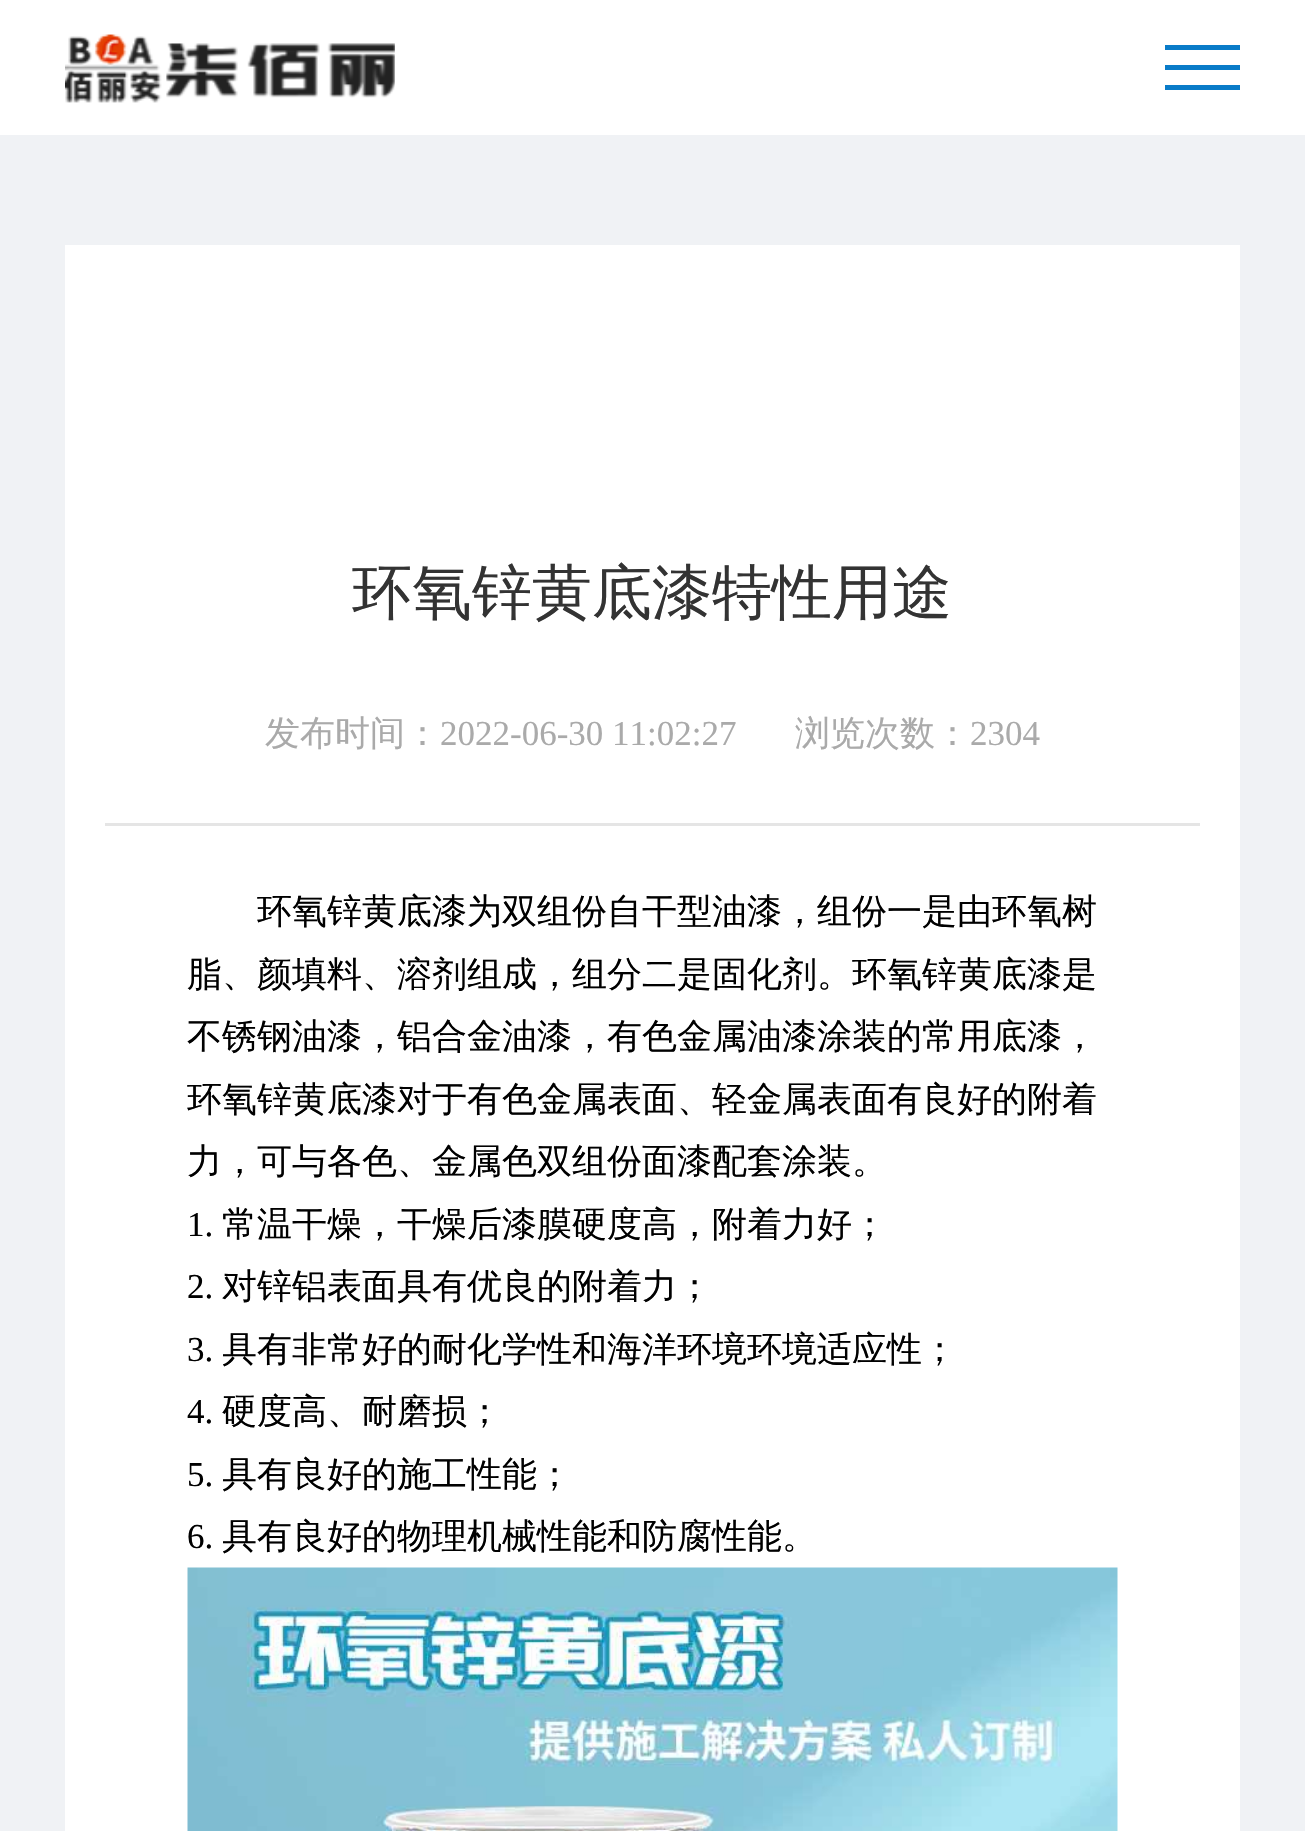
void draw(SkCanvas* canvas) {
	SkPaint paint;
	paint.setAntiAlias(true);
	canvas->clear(0xffffffff);
	canvas->drawImageRect(SkImages::DeferredFromEncodedData(SkData::MakeFromFileName("img1.png")), SkRect::MakeXYWH(65, 34, 330, 69), SkSamplingOptions());
	paint.setColor(0xff097bc8);
	canvas->drawRect(SkRect::MakeXYWH(1165, 45, 75, 5), paint);
	canvas->drawRect(SkRect::MakeXYWH(1165, 65, 75, 5), paint);
	canvas->drawRect(SkRect::MakeXYWH(1165, 85, 75, 5), paint);
	paint.setColor(0xfff0f2f5);
	canvas->drawRect(SkRect::MakeXYWH(0, 135, 1305, 1696), paint);
	paint.setColor(0xffffffff);
	canvas->drawRect(SkRect::MakeXYWH(65, 245, 1175, 1586), paint);
	SkFont f1(fontMgr->matchFamilyStyle("WenQuanYi Zen Hei", SkFontStyle(500, SkFontStyle::kNormal_Width, SkFontStyle::kUpright_Slant)), 60);
	f1.setSubpixel(true);
	paint.setColor(0xff333333);
	canvas->drawString("环氧锌黄底漆特性用途", 352, 613, f1, paint);
	SkFont f2(fontMgr->matchFamilyStyle("WenQuanYi Zen Hei", SkFontStyle(500, SkFontStyle::kNormal_Width, SkFontStyle::kUpright_Slant)), 35);
	f2.setSubpixel(true);
	paint.setColor(0xffaaaaaa);
	canvas->drawString("发布时间：", 265, 745, f2, paint);
	SkFont f3(fontMgr->matchFamilyStyle("Liberation Serif", SkFontStyle::Normal()), 35);
	f3.setSubpixel(true);
	canvas->drawString("2022-06-30 11:02:27", 440, 745, f3, paint);
	canvas->drawString("浏览次数：", 795, 745, f2, paint);
	canvas->drawString("2304", 970, 745, f3, paint);
	paint.setColor(0xffe5e5e5);
	canvas->drawRect(SkRect::MakeXYWH(105, 823, 1095, 3), paint);
	paint.setColor(0xff000000);
	canvas->drawString("环氧锌黄底漆为双组份自干型油漆，组份一是由环氧树", 257, 923, f2, paint);
	canvas->drawString("脂、颜填料、溶剂组成，组分二是固化剂。环氧锌黄底漆是", 187, 986, f2, paint);
	canvas->drawString("不锈钢油漆，铝合金油漆，有色金属油漆涂装的常用底漆，", 187, 1048, f2, paint);
	canvas->drawString("环氧锌黄底漆对于有色金属表面、轻金属表面有良好的附着", 187, 1111, f2, paint);
	canvas->drawString("力，可与各色、金属色双组份面漆配套涂装。", 187, 1173, f2, paint);
	canvas->drawString("1.", 187, 1236, f3, paint);
	canvas->drawString("常温干燥，干燥后漆膜硬度高，附着力好；", 222, 1236, f2, paint);
	canvas->drawString("2.", 187, 1298, f3, paint);
	canvas->drawString("对锌铝表面具有优良的附着力；", 222, 1298, f2, paint);
	canvas->drawString("3.", 187, 1361, f3, paint);
	canvas->drawString("具有非常好的耐化学性和海洋环境环境适应性；", 222, 1361, f2, paint);
	canvas->drawString("4.", 187, 1423, f3, paint);
	canvas->drawString("硬度高、耐磨损；", 222, 1423, f2, paint);
	canvas->drawString("5.", 187, 1486, f3, paint);
	canvas->drawString("具有良好的施工性能；", 222, 1486, f2, paint);
	canvas->drawString("6.", 187, 1548, f3, paint);
	canvas->drawString("具有良好的物理机械性能和防腐性能。", 222, 1548, f2, paint);
	canvas->drawImageRect(SkImages::DeferredFromEncodedData(SkData::MakeFromFileName("img2.png")), SkRect::MakeXYWH(187, 1567, 931, 264), SkSamplingOptions());
}
